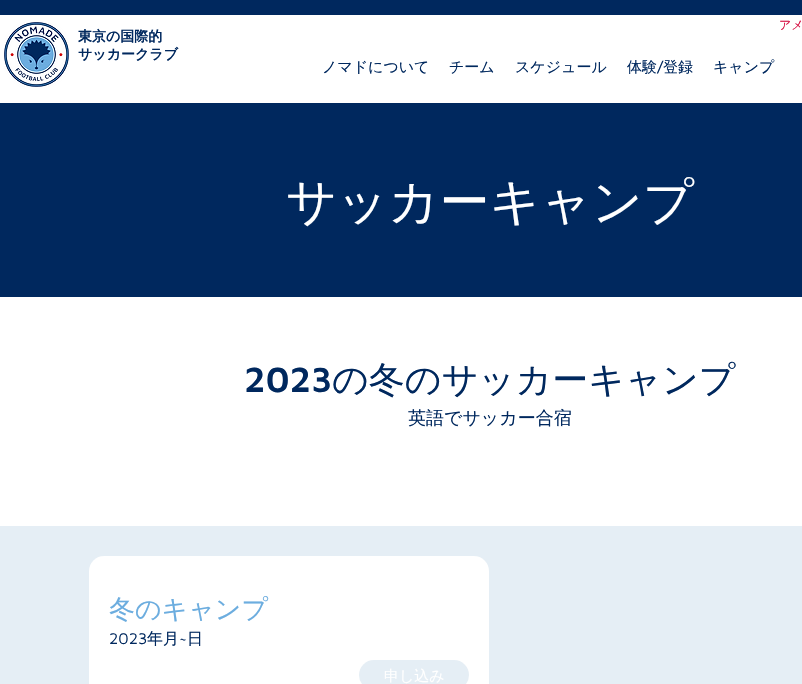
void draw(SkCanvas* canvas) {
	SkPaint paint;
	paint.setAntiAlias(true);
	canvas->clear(0xffffffff);
	paint.setColor(0xff00285e);
	canvas->drawRect(SkRect::MakeXYWH(0, 0, 802, 15), paint);
	canvas->drawImageRect(SkImages::DeferredFromEncodedData(SkData::MakeFromFileName("img1.png")), SkRect::MakeXYWH(4, 22, 65, 65), SkSamplingOptions());
	SkFont f1(fontMgr->matchFamilyStyle("WenQuanYi Zen Hei", SkFontStyle::Bold()), 14);
	f1.setSubpixel(true);
	canvas->drawString("東京の国際的", 78, 41, f1, paint);
	canvas->drawString("サッカークラブ", 78, 59, f1, paint);
	SkFont f2(fontMgr->matchFamilyStyle("WenQuanYi Zen Hei", SkFontStyle(500, SkFontStyle::kNormal_Width, SkFontStyle::kUpright_Slant)), 12);
	f2.setSubpixel(true);
	paint.setColor(0xffd61043);
	canvas->drawString("アメ", 779, 29, f2, paint);
	SkFont f3(fontMgr->matchFamilyStyle("WenQuanYi Zen Hei", SkFontStyle(500, SkFontStyle::kNormal_Width, SkFontStyle::kUpright_Slant)), 15);
	f3.setSubpixel(true);
	paint.setColor(0xff00285e);
	canvas->drawString("ノマドについて", 322, 72, f3, paint);
	canvas->drawString("チーム", 449, 72, f3, paint);
	canvas->drawString("スケジュール", 515, 72, f3, paint);
	canvas->drawString("体験", 627, 72, f3, paint);
	SkFont f4(fontMgr->matchFamilyStyle("Maven Pro", SkFontStyle(500, SkFontStyle::kNormal_Width, SkFontStyle::kUpright_Slant)), 15);
	f4.setSubpixel(true);
	canvas->drawString("/", 657, 72, f4, paint);
	canvas->drawString("登録", 663, 72, f3, paint);
	canvas->drawString("キャンプ", 713, 72, f3, paint);
	canvas->drawRect(SkRect::MakeXYWH(0, 103, 802, 194), paint);
	SkFont f5(fontMgr->matchFamilyStyle("WenQuanYi Zen Hei", SkFontStyle(500, SkFontStyle::kNormal_Width, SkFontStyle::kUpright_Slant)), 50);
	f5.setSubpixel(true);
	paint.setColor(0xffffffff);
	canvas->drawString("サッカーキャンプ", 286, 219, f5, paint);
	SkFont f6(fontMgr->matchFamilyStyle("Maven Pro", SkFontStyle(600, SkFontStyle::kNormal_Width, SkFontStyle::kUpright_Slant)), 36);
	f6.setSubpixel(true);
	paint.setColor(0xff00285e);
	canvas->drawString("2023", 244, 392, f6, paint);
	SkFont f7(fontMgr->matchFamilyStyle("WenQuanYi Zen Hei", SkFontStyle(500, SkFontStyle::kNormal_Width, SkFontStyle::kUpright_Slant)), 36);
	f7.setSubpixel(true);
	canvas->drawString("の冬のサッカーキャンプ", 332, 392, f7, paint);
	SkFont f8(fontMgr->matchFamilyStyle("WenQuanYi Zen Hei", SkFontStyle(500, SkFontStyle::kNormal_Width, SkFontStyle::kUpright_Slant)), 18);
	f8.setSubpixel(true);
	canvas->drawString("英語でサッカー合宿", 408, 424, f8, paint);
	paint.setColor(0xffe5eef5);
	canvas->drawRect(SkRect::MakeXYWH(0, 526, 802, 158), paint);
	paint.setColor(0xffffffff);
	canvas->drawRoundRect(SkRect::MakeXYWH(89, 556, 400, 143), 15, 15, paint);
	SkFont f9(fontMgr->matchFamilyStyle("WenQuanYi Zen Hei", SkFontStyle(500, SkFontStyle::kNormal_Width, SkFontStyle::kUpright_Slant)), 26);
	f9.setSubpixel(true);
	paint.setColor(0xff6caddf);
	canvas->drawString("冬のキャンプ", 109, 618, f9, paint);
	SkFont f10(fontMgr->matchFamilyStyle("Maven Pro", SkFontStyle::Normal()), 16);
	f10.setSubpixel(true);
	paint.setColor(0xff00285e);
	canvas->drawString("2023", 109, 644, f10, paint);
	SkFont f11(fontMgr->matchFamilyStyle("WenQuanYi Zen Hei", SkFontStyle(500, SkFontStyle::kNormal_Width, SkFontStyle::kUpright_Slant)), 16);
	f11.setSubpixel(true);
	canvas->drawString("年月", 147, 644, f11, paint);
	canvas->drawString("~", 179, 644, f10, paint);
	canvas->drawString("日", 187, 644, f11, paint);
	paint.setColor(0xffe5eef5);
	canvas->drawRoundRect(SkRect::MakeXYWH(359, 660, 110, 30), 15, 15, paint);
	paint.setColor(0xffffffff);
	canvas->drawString("申し込み", 384, 681, f3, paint);
}
